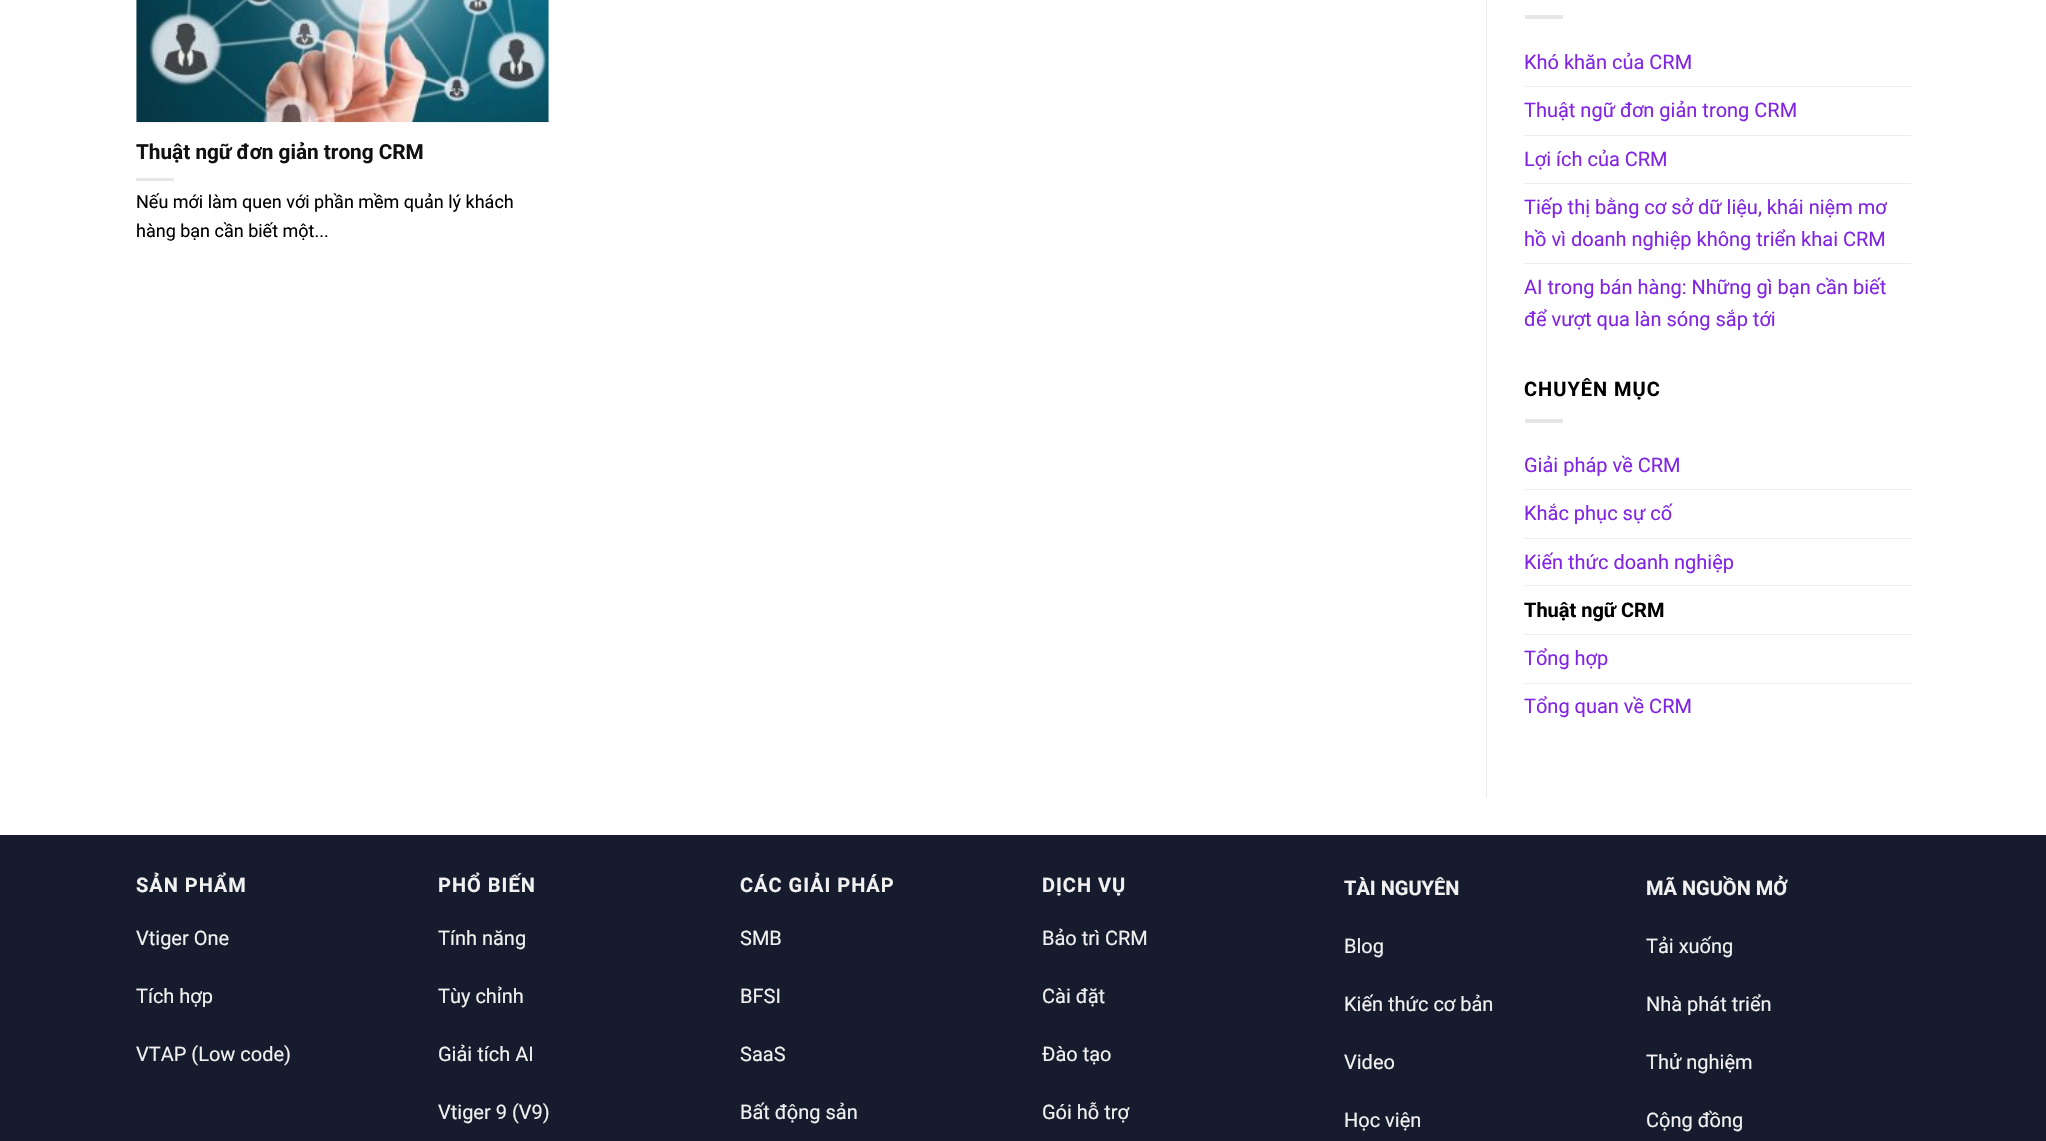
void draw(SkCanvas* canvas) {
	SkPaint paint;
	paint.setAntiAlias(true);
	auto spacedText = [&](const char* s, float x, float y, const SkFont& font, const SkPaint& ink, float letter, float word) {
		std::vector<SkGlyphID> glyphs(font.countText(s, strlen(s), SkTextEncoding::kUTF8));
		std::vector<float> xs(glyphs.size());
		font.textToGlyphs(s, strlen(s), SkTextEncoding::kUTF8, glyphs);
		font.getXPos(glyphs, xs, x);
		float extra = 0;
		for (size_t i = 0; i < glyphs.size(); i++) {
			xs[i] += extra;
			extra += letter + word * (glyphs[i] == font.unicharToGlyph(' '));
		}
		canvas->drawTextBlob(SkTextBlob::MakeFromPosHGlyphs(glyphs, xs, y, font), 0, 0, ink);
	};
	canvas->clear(0xffffffff);
	canvas->drawImageRect(SkImages::DeferredFromEncodedData(SkData::MakeFromFileName("img1.png")), SkRect::MakeXYWH(136, 0, 413, 123), SkSamplingOptions());
	SkFont f1(fontMgr->matchFamilyStyle("Roboto", SkFontStyle::Bold()), 20.75);
	f1.setSubpixel(true);
	paint.setColor(0xff111111);
	canvas->drawString("Thuật ngữ đơn giản trong CRM", 136, 159, f1, paint);
	paint.setColor(0xffe6e6e6);
	canvas->drawRect(SkRect::MakeXYWH(136, 178, 38, 3), paint);
	SkFont f2(fontMgr->matchFamilyStyle("Roboto", SkFontStyle::Normal()), 18);
	f2.setSubpixel(true);
	paint.setColor(0xff000000);
	canvas->drawString("Nếu mới làm quen với phần mềm quản lý khách", 136, 208, f2, paint);
	canvas->drawString("hàng bạn cần biết một...", 136, 237, f2, paint);
	paint.setColor(0xffececec);
	canvas->drawRect(SkRect::MakeXYWH(1486, 0, 1, 798), paint);
	paint.setColor(0xffe6e6e6);
	canvas->drawRect(SkRect::MakeXYWH(1525, 15, 38, 4), paint);
	SkFont f3(fontMgr->matchFamilyStyle("Roboto", SkFontStyle::Normal()), 20);
	f3.setSubpixel(true);
	paint.setColor(0xff8224e3);
	canvas->drawString("Khó khăn của CRM", 1524, 69, f3, paint);
	paint.setColor(0xffececec);
	canvas->drawRect(SkRect::MakeXYWH(1525, 86, 386, 1), paint);
	paint.setColor(0xff8224e3);
	canvas->drawString("Thuật ngữ đơn giản trong CRM", 1524, 117, f3, paint);
	paint.setColor(0xffececec);
	canvas->drawRect(SkRect::MakeXYWH(1525, 135, 386, 1), paint);
	paint.setColor(0xff8224e3);
	canvas->drawString("Lợi ích của CRM", 1524, 166, f3, paint);
	paint.setColor(0xffececec);
	canvas->drawRect(SkRect::MakeXYWH(1525, 183, 386, 1), paint);
	paint.setColor(0xff8224e3);
	canvas->drawString("Tiếp thị bằng cơ sở dữ liệu, khái niệm mơ", 1524, 214, f3, paint);
	canvas->drawString("hồ vì doanh nghiệp không triển khai CRM", 1524, 246, f3, paint);
	paint.setColor(0xffececec);
	canvas->drawRect(SkRect::MakeXYWH(1525, 263, 386, 1), paint);
	paint.setColor(0xff8224e3);
	canvas->drawString("AI trong bán hàng: Những gì bạn cần biết", 1524, 294, f3, paint);
	canvas->drawString("để vượt qua làn sóng sắp tới", 1524, 326, f3, paint);
	SkFont f4(fontMgr->matchFamilyStyle("Roboto", SkFontStyle::Bold()), 20);
	f4.setSubpixel(true);
	paint.setColor(0xff000000);
	spacedText("CHUYÊN MỤC", 1524, 396, f4, paint, 1, 0);
	paint.setColor(0xffe6e6e6);
	canvas->drawRect(SkRect::MakeXYWH(1525, 419, 38, 4), paint);
	paint.setColor(0xff8224e3);
	canvas->drawString("Giải pháp về CRM", 1524, 472, f3, paint);
	paint.setColor(0xffececec);
	canvas->drawRect(SkRect::MakeXYWH(1525, 489, 386, 1), paint);
	paint.setColor(0xff8224e3);
	canvas->drawString("Khắc phục sự cố", 1524, 520, f3, paint);
	paint.setColor(0xffececec);
	canvas->drawRect(SkRect::MakeXYWH(1525, 538, 386, 1), paint);
	paint.setColor(0xff8224e3);
	canvas->drawString("Kiến thức doanh nghiệp", 1524, 569, f3, paint);
	paint.setColor(0xffececec);
	canvas->drawRect(SkRect::MakeXYWH(1525, 585, 386, 1), paint);
	paint.setColor(0xff000000);
	canvas->drawString("Thuật ngữ CRM", 1524, 617, f4, paint);
	paint.setColor(0xffececec);
	canvas->drawRect(SkRect::MakeXYWH(1525, 634, 386, 1), paint);
	paint.setColor(0xff8224e3);
	canvas->drawString("Tổng hợp", 1524, 665, f3, paint);
	paint.setColor(0xffececec);
	canvas->drawRect(SkRect::MakeXYWH(1525, 683, 386, 1), paint);
	paint.setColor(0xff8224e3);
	canvas->drawString("Tổng quan về CRM", 1524, 713, f3, paint);
	paint.setColor(0xff161c2d);
	canvas->drawRect(SkRect::MakeXYWH(0, 835, 2046, 306), paint);
	paint.setColor(0xfff1f1f1);
	spacedText("SẢN PHẨM", 136, 892, f4, paint, 1, 0);
	canvas->drawString("Vtiger One", 136, 945, f3, paint);
	canvas->drawString("Tích hợp", 136, 1003, f3, paint);
	canvas->drawString("VTAP (Low code)", 136, 1061, f3, paint);
	spacedText("PHỔ BIẾN", 438, 892, f4, paint, 1, 0);
	canvas->drawString("Tính năng", 438, 945, f3, paint);
	canvas->drawString("Tùy chỉnh", 438, 1003, f3, paint);
	canvas->drawString("Giải tích AI", 438, 1061, f3, paint);
	canvas->drawString("Vtiger 9 (V9)", 438, 1119, f3, paint);
	spacedText("CÁC GIẢI PHÁP", 740, 892, f4, paint, 1, 0);
	canvas->drawString("SMB", 740, 945, f3, paint);
	canvas->drawString("BFSI", 740, 1003, f3, paint);
	canvas->drawString("SaaS", 740, 1061, f3, paint);
	canvas->drawString("Bất động sản", 740, 1119, f3, paint);
	spacedText("DỊCH VỤ", 1042, 892, f4, paint, 1, 0);
	canvas->drawString("Bảo trì CRM", 1042, 945, f3, paint);
	canvas->drawString("Cài đặt", 1042, 1003, f3, paint);
	canvas->drawString("Đào tạo", 1042, 1061, f3, paint);
	canvas->drawString("Gói hỗ trợ", 1042, 1119, f3, paint);
	canvas->drawString("TÀI NGUYÊN", 1344, 895, f4, paint);
	canvas->drawString("Blog", 1344, 953, f3, paint);
	canvas->drawString("Kiến thức cơ bản", 1344, 1011, f3, paint);
	canvas->drawString("Video", 1344, 1069, f3, paint);
	canvas->drawString("Học viện", 1344, 1127, f3, paint);
	canvas->drawString("MÃ NGUỒN MỞ", 1646, 895, f4, paint);
	canvas->drawString("Tải xuống", 1646, 953, f3, paint);
	canvas->drawString("Nhà phát triển", 1646, 1011, f3, paint);
	canvas->drawString("Thử nghiệm", 1646, 1069, f3, paint);
	canvas->drawString("Cộng đồng", 1646, 1127, f3, paint);
}
